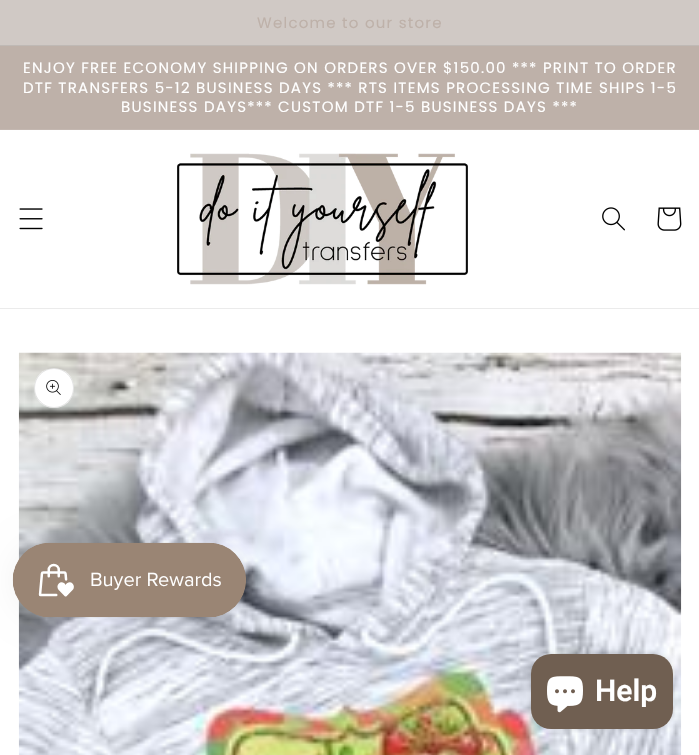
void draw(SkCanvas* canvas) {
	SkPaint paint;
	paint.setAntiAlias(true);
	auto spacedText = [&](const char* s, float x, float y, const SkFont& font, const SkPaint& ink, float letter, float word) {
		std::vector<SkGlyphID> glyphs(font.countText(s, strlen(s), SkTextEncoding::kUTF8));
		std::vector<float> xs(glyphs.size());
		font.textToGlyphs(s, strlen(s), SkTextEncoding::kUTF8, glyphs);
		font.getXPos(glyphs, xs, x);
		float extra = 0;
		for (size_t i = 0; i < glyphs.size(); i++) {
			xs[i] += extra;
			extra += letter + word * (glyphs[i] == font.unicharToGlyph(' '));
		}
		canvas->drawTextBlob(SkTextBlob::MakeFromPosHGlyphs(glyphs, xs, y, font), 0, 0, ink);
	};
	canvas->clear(0xffffffff);
	paint.setColor(0xffd0c9c5);
	canvas->drawRect(SkRect::MakeXYWH(0, 0, 699, 45), paint);
	paint.setColor(0xffbfb9b5);
	canvas->drawRect(SkRect::MakeXYWH(0, 45, 699, 1), paint);
	SkFont f1(fontMgr->matchFamilyStyle("Poppins", SkFontStyle::Normal()), 15);
	f1.setSubpixel(true);
	paint.setColor(0xffbeb1a9);
	spacedText("Welcome to our store", 257, 28, f1, paint, 1.25, 0);
	canvas->drawRect(SkRect::MakeXYWH(0, 46, 699, 83), paint);
	paint.setColor(0xffc3b7b0);
	canvas->drawRect(SkRect::MakeXYWH(0, 129, 699, 1), paint);
	paint.setColor(0xffffffff);
	spacedText("ENJOY FREE ECONOMY SHIPPING ON ORDERS OVER $150.00 *** PRINT TO ORDER", 23, 73, f1, paint, 1.25, 0);
	spacedText("DTF TRANSFERS 5-12 BUSINESS DAYS *** RTS ITEMS PROCESSING TIME SHIPS 1-5", 23, 93, f1, paint, 1.25, 0);
	spacedText("BUSINESS DAYS*** CUSTOM DTF 1-5 BUSINESS DAYS ***", 121, 112, f1, paint, 1.25, 0);
	paint.setColor(0xffebebeb);
	canvas->drawRect(SkRect::MakeXYWH(0, 308, 699, 1), paint);
	canvas->drawImageRect(SkImages::DeferredFromEncodedData(SkData::MakeFromFileName("img1.png")), SkRect::MakeXYWH(19, 208, 24, 22), SkSamplingOptions());
	canvas->drawImageRect(SkImages::DeferredFromEncodedData(SkData::MakeFromFileName("img2.png")), SkRect::MakeXYWH(177, 153, 291, 132), SkSamplingOptions());
	canvas->drawImageRect(SkImages::DeferredFromEncodedData(SkData::MakeFromFileName("img3.png")), SkRect::MakeXYWH(602, 207, 23, 24), SkSamplingOptions());
	canvas->drawImageRect(SkImages::DeferredFromEncodedData(SkData::MakeFromFileName("img4.png")), SkRect::MakeXYWH(657, 207, 25, 24), SkSamplingOptions());
	canvas->drawImageRect(SkImages::DeferredFromEncodedData(SkData::MakeFromFileName("img5.png")), SkRect::MakeXYWH(18, 352, 664, 403), SkSamplingOptions());
	paint.setColor(0xffffffff);
	canvas->drawCircle(54, 388, 20, paint);
	paint.setStroke(true);
	paint.setStrokeWidth(1);
	paint.setColor(0x1a000000);
	canvas->drawCircle(54, 388, 19.5, paint);
	canvas->drawImageRect(SkImages::DeferredFromEncodedData(SkData::MakeFromFileName("img6.png")), SkRect::MakeXYWH(46, 380, 15, 15), SkSamplingOptions());
	paint.setStroke(false);
	paint.setColor(0x0d000000);
	paint.setMaskFilter(SkMaskFilter::MakeBlur(kNormal_SkBlurStyle, 15.5));
	canvas->drawRoundRect(SkRect::MakeXYWH(13, 543, 233, 75), 37.5, 37.5, paint);
	paint.setMaskFilter(nullptr);
	canvas->drawImageRect(SkImages::DeferredFromEncodedData(SkData::MakeFromFileName("img7.png")), SkRect::MakeXYWH(12, 542, 234, 76), SkSamplingOptions());
	paint.setColor(0x26000000);
	paint.setMaskFilter(SkMaskFilter::MakeBlur(kNormal_SkBlurStyle, 3));
	canvas->drawRoundRect(SkRect::MakeXYWH(531, 654, 142, 75), 20, 20, paint);
	paint.setMaskFilter(nullptr);
	paint.setColor(0xff705f51);
	canvas->drawRoundRect(SkRect::MakeXYWH(531, 654, 142, 75), 20, 20, paint);
	canvas->drawImageRect(SkImages::DeferredFromEncodedData(SkData::MakeFromFileName("img8.png")), SkRect::MakeXYWH(547, 676, 36, 37), SkSamplingOptions());
	SkFont f2(fontMgr->matchFamilyStyle("Roboto", SkFontStyle(600, SkFontStyle::kNormal_Width, SkFontStyle::kUpright_Slant)), 30);
	f2.setSubpixel(true);
	paint.setColor(0xffffffff);
	canvas->drawString("Help", 595, 701, f2, paint);
}
